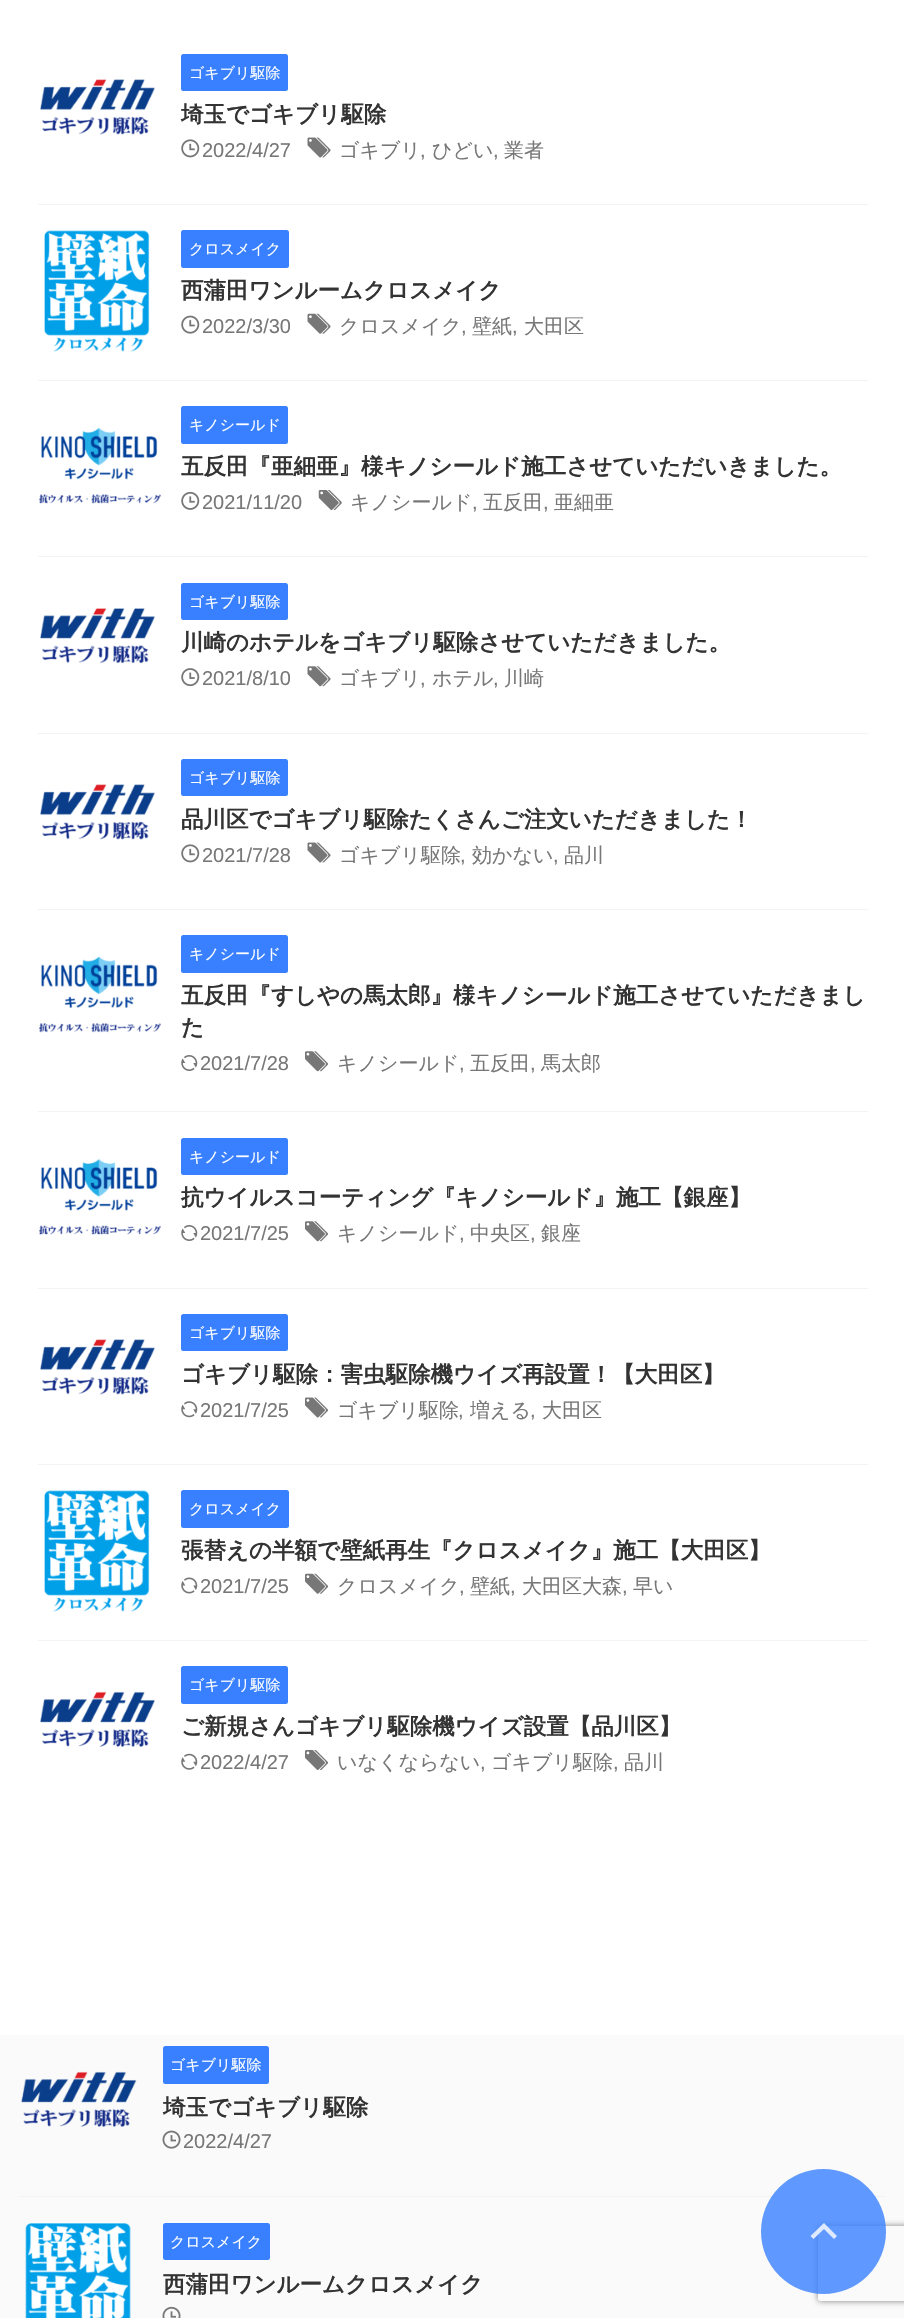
void draw(SkCanvas* canvas) {
	SkPaint paint;
	paint.setAntiAlias(true);
	auto svgPath = [&](const char* data, bool evenOdd = false) {
		SkPath result = *SkParsePath::FromSVGString(data);
		if (evenOdd) result.setFillType(SkPathFillType::kEvenOdd);
		return result;
	};
	canvas->clear(0xfffafafa);
	paint.setColor(0xffffffff);
	canvas->drawRect(SkRect::MakeXYWH(0, 0, 904, 2035), paint);
	paint.setColor(0xfff3f3f3);
	canvas->drawRect(SkRect::MakeXYWH(38, 204, 830, 1), paint);
	canvas->drawImageRect(SkImages::DeferredFromEncodedData(SkData::MakeFromFileName("img1.png")), SkRect::MakeXYWH(40, 79, 115, 56), SkSamplingOptions());
	paint.setColor(0xff3880ff);
	canvas->drawRoundRect(SkRect::MakeXYWH(181, 54, 107, 37), 2.5, 2.5, paint);
	SkFont f1(fontMgr->matchFamilyStyle("WenQuanYi Zen Hei", SkFontStyle(500, SkFontStyle::kNormal_Width, SkFontStyle::kUpright_Slant)), 15);
	f1.setSubpixel(true);
	paint.setColor(0xffffffff);
	canvas->drawString("ゴキブリ駆除", 189, 78, f1, paint);
	SkFont f2(fontMgr->matchFamilyStyle("WenQuanYi Zen Hei", SkFontStyle::Bold()), 22.5);
	f2.setSubpixel(true);
	paint.setColor(0xff333333);
	canvas->drawString("埼玉でゴキブリ駆除", 181, 122, f2, paint);
	canvas->drawImageRect(SkImages::DeferredFromEncodedData(SkData::MakeFromFileName("img2.png")), SkRect::MakeXYWH(181, 139, 19, 19), SkSamplingOptions());
	SkFont f3(fontMgr->matchFamilyStyle("Liberation Sans", SkFontStyle::Normal()), 20);
	f3.setSubpixel(true);
	paint.setColor(0xff777777);
	canvas->drawString("2022/4/27", 202, 157, f3, paint);
	canvas->drawImageRect(SkImages::DeferredFromEncodedData(SkData::MakeFromFileName("img3.png")), SkRect::MakeXYWH(307, 137, 24, 21), SkSamplingOptions());
	SkFont f4(fontMgr->matchFamilyStyle("WenQuanYi Zen Hei", SkFontStyle(500, SkFontStyle::kNormal_Width, SkFontStyle::kUpright_Slant)), 20);
	f4.setSubpixel(true);
	canvas->drawString("ゴキブリ", 339, 157, f4, paint);
	canvas->drawString(",", 420, 157, f3, paint);
	canvas->drawString("ひどい", 432, 157, f4, paint);
	canvas->drawString(",", 493, 157, f3, paint);
	canvas->drawString("業者", 504, 157, f4, paint);
	paint.setColor(0xfff3f3f3);
	canvas->drawRect(SkRect::MakeXYWH(38, 380, 830, 1), paint);
	canvas->drawImageRect(SkImages::DeferredFromEncodedData(SkData::MakeFromFileName("img4.png")), SkRect::MakeXYWH(44, 230, 106, 122), SkSamplingOptions());
	paint.setColor(0xff3880ff);
	canvas->drawRoundRect(SkRect::MakeXYWH(181, 230, 108, 38), 2.5, 2.5, paint);
	paint.setColor(0xffffffff);
	canvas->drawString("クロスメイク", 189, 254, f1, paint);
	paint.setColor(0xff333333);
	canvas->drawString("西蒲田ワンルームクロスメイク", 181, 298, f2, paint);
	canvas->drawImageRect(SkImages::DeferredFromEncodedData(SkData::MakeFromFileName("img5.png")), SkRect::MakeXYWH(181, 315, 19, 19), SkSamplingOptions());
	paint.setColor(0xff777777);
	canvas->drawString("2022/3/30", 202, 333, f3, paint);
	canvas->drawImageRect(SkImages::DeferredFromEncodedData(SkData::MakeFromFileName("img6.png")), SkRect::MakeXYWH(307, 313, 24, 21), SkSamplingOptions());
	canvas->drawString("クロスメイク", 339, 333, f4, paint);
	canvas->drawString(",", 461, 333, f3, paint);
	canvas->drawString("壁紙", 472, 333, f4, paint);
	canvas->drawString(",", 512, 333, f3, paint);
	canvas->drawString("大田区", 524, 333, f4, paint);
	paint.setColor(0xfff3f3f3);
	canvas->drawRect(SkRect::MakeXYWH(38, 556, 830, 1), paint);
	canvas->drawImageRect(SkImages::DeferredFromEncodedData(SkData::MakeFromFileName("img7.png")), SkRect::MakeXYWH(39, 427, 122, 77), SkSamplingOptions());
	paint.setColor(0xff3880ff);
	canvas->drawRoundRect(SkRect::MakeXYWH(181, 406, 107, 38), 2.5, 2.5, paint);
	paint.setColor(0xffffffff);
	canvas->drawString("キノシールド", 189, 430, f1, paint);
	paint.setColor(0xff333333);
	canvas->drawString("五反田『亜細亜』様キノシールド施工させていただいきました。", 181, 474, f2, paint);
	canvas->drawImageRect(SkImages::DeferredFromEncodedData(SkData::MakeFromFileName("img8.png")), SkRect::MakeXYWH(181, 491, 19, 19), SkSamplingOptions());
	paint.setColor(0xff777777);
	canvas->drawString("2021/11/20", 202, 509, f3, paint);
	canvas->drawImageRect(SkImages::DeferredFromEncodedData(SkData::MakeFromFileName("img9.png")), SkRect::MakeXYWH(318, 490, 24, 20), SkSamplingOptions());
	canvas->drawString("キノシールド", 350, 509, f4, paint);
	canvas->drawString(",", 472, 509, f3, paint);
	canvas->drawString("五反田", 483, 509, f4, paint);
	canvas->drawString(",", 543, 509, f3, paint);
	canvas->drawString("亜細亜", 554, 509, f4, paint);
	paint.setColor(0xfff3f3f3);
	canvas->drawRect(SkRect::MakeXYWH(38, 733, 830, 1), paint);
	canvas->drawImageRect(SkImages::DeferredFromEncodedData(SkData::MakeFromFileName("img10.png")), SkRect::MakeXYWH(40, 608, 115, 56), SkSamplingOptions());
	paint.setColor(0xff3880ff);
	canvas->drawRoundRect(SkRect::MakeXYWH(181, 583, 107, 37), 2.5, 2.5, paint);
	paint.setColor(0xffffffff);
	canvas->drawString("ゴキブリ駆除", 189, 607, f1, paint);
	paint.setColor(0xff333333);
	canvas->drawString("川崎のホテルをゴキブリ駆除させていただきました。", 181, 650, f2, paint);
	canvas->drawImageRect(SkImages::DeferredFromEncodedData(SkData::MakeFromFileName("img11.png")), SkRect::MakeXYWH(181, 668, 19, 19), SkSamplingOptions());
	paint.setColor(0xff777777);
	canvas->drawString("2021/8/10", 202, 685, f3, paint);
	canvas->drawImageRect(SkImages::DeferredFromEncodedData(SkData::MakeFromFileName("img12.png")), SkRect::MakeXYWH(307, 666, 24, 21), SkSamplingOptions());
	canvas->drawString("ゴキブリ", 339, 685, f4, paint);
	canvas->drawString(",", 420, 685, f3, paint);
	canvas->drawString("ホテル", 432, 685, f4, paint);
	canvas->drawString(",", 493, 685, f3, paint);
	canvas->drawString("川崎", 504, 685, f4, paint);
	paint.setColor(0xfff3f3f3);
	canvas->drawRect(SkRect::MakeXYWH(38, 909, 830, 1), paint);
	canvas->drawImageRect(SkImages::DeferredFromEncodedData(SkData::MakeFromFileName("img13.png")), SkRect::MakeXYWH(40, 784, 115, 56), SkSamplingOptions());
	paint.setColor(0xff3880ff);
	canvas->drawRoundRect(SkRect::MakeXYWH(181, 759, 107, 37), 2.5, 2.5, paint);
	paint.setColor(0xffffffff);
	canvas->drawString("ゴキブリ駆除", 189, 783, f1, paint);
	paint.setColor(0xff333333);
	canvas->drawString("品川区でゴキブリ駆除たくさんご注文いただきました！", 181, 827, f2, paint);
	canvas->drawImageRect(SkImages::DeferredFromEncodedData(SkData::MakeFromFileName("img2.png")), SkRect::MakeXYWH(181, 844, 19, 19), SkSamplingOptions());
	paint.setColor(0xff777777);
	canvas->drawString("2021/7/28", 202, 862, f3, paint);
	canvas->drawImageRect(SkImages::DeferredFromEncodedData(SkData::MakeFromFileName("img3.png")), SkRect::MakeXYWH(307, 842, 24, 21), SkSamplingOptions());
	canvas->drawString("ゴキブリ駆除", 339, 862, f4, paint);
	canvas->drawString(",", 460, 862, f3, paint);
	canvas->drawString("効かない", 472, 862, f4, paint);
	canvas->drawString(",", 553, 862, f3, paint);
	canvas->drawString("品川", 564, 862, f4, paint);
	paint.setColor(0xfff3f3f3);
	canvas->drawRect(SkRect::MakeXYWH(38, 1111, 830, 1), paint);
	canvas->drawImageRect(SkImages::DeferredFromEncodedData(SkData::MakeFromFileName("img14.png")), SkRect::MakeXYWH(39, 956, 122, 77), SkSamplingOptions());
	paint.setColor(0xff3880ff);
	canvas->drawRoundRect(SkRect::MakeXYWH(181, 935, 107, 38), 2.5, 2.5, paint);
	paint.setColor(0xffffffff);
	canvas->drawString("キノシールド", 189, 959, f1, paint);
	paint.setColor(0xff333333);
	canvas->drawString("五反田『すしやの馬太郎』様キノシールド施工させていただきまし", 181, 1003, f2, paint);
	canvas->drawString("た", 181, 1035, f2, paint);
	canvas->drawImageRect(SkImages::DeferredFromEncodedData(SkData::MakeFromFileName("img15.png")), SkRect::MakeXYWH(181, 1055, 17, 16), SkSamplingOptions());
	paint.setColor(0xff777777);
	canvas->drawString("2021/7/28", 200, 1070, f3, paint);
	canvas->drawImageRect(SkImages::DeferredFromEncodedData(SkData::MakeFromFileName("img16.png")), SkRect::MakeXYWH(305, 1051, 23, 21), SkSamplingOptions());
	canvas->drawString("キノシールド", 337, 1070, f4, paint);
	canvas->drawString(",", 459, 1070, f3, paint);
	canvas->drawString("五反田", 470, 1070, f4, paint);
	canvas->drawString(",", 530, 1070, f3, paint);
	canvas->drawString("馬太郎", 541, 1070, f4, paint);
	paint.setColor(0xfff3f3f3);
	canvas->drawRect(SkRect::MakeXYWH(38, 1288, 830, 1), paint);
	canvas->drawImageRect(SkImages::DeferredFromEncodedData(SkData::MakeFromFileName("img17.png")), SkRect::MakeXYWH(39, 1159, 122, 76), SkSamplingOptions());
	paint.setColor(0xff3880ff);
	canvas->drawRoundRect(SkRect::MakeXYWH(181, 1138, 107, 37), 2.5, 2.5, paint);
	paint.setColor(0xffffffff);
	canvas->drawString("キノシールド", 189, 1162, f1, paint);
	paint.setColor(0xff333333);
	canvas->drawString("抗ウイルスコーティング『キノシールド』施工【銀座】", 181, 1205, f2, paint);
	canvas->drawImageRect(SkImages::DeferredFromEncodedData(SkData::MakeFromFileName("img15.png")), SkRect::MakeXYWH(181, 1225, 17, 16), SkSamplingOptions());
	paint.setColor(0xff777777);
	canvas->drawString("2021/7/25", 200, 1240, f3, paint);
	canvas->drawImageRect(SkImages::DeferredFromEncodedData(SkData::MakeFromFileName("img16.png")), SkRect::MakeXYWH(305, 1221, 23, 21), SkSamplingOptions());
	canvas->drawString("キノシールド", 337, 1240, f4, paint);
	canvas->drawString(",", 459, 1240, f3, paint);
	canvas->drawString("中央区", 470, 1240, f4, paint);
	canvas->drawString(",", 530, 1240, f3, paint);
	canvas->drawString("銀座", 541, 1240, f4, paint);
	paint.setColor(0xfff3f3f3);
	canvas->drawRect(SkRect::MakeXYWH(38, 1464, 830, 1), paint);
	canvas->drawImageRect(SkImages::DeferredFromEncodedData(SkData::MakeFromFileName("img18.png")), SkRect::MakeXYWH(40, 1339, 115, 56), SkSamplingOptions());
	paint.setColor(0xff3880ff);
	canvas->drawRoundRect(SkRect::MakeXYWH(181, 1314, 107, 37), 2.5, 2.5, paint);
	paint.setColor(0xffffffff);
	canvas->drawString("ゴキブリ駆除", 189, 1338, f1, paint);
	paint.setColor(0xff333333);
	canvas->drawString("ゴキブリ駆除：害虫駆除機ウイズ再設置！【大田区】", 181, 1382, f2, paint);
	canvas->drawImageRect(SkImages::DeferredFromEncodedData(SkData::MakeFromFileName("img19.png")), SkRect::MakeXYWH(181, 1401, 17, 17), SkSamplingOptions());
	paint.setColor(0xff777777);
	canvas->drawString("2021/7/25", 200, 1417, f3, paint);
	canvas->drawImageRect(SkImages::DeferredFromEncodedData(SkData::MakeFromFileName("img20.png")), SkRect::MakeXYWH(305, 1397, 23, 21), SkSamplingOptions());
	canvas->drawString("ゴキブリ駆除", 337, 1417, f4, paint);
	canvas->drawString(",", 458, 1417, f3, paint);
	canvas->drawString("増える", 470, 1417, f4, paint);
	canvas->drawString(",", 530, 1417, f3, paint);
	canvas->drawString("大田区", 542, 1417, f4, paint);
	paint.setColor(0xfff3f3f3);
	canvas->drawRect(SkRect::MakeXYWH(38, 1640, 830, 1), paint);
	canvas->drawImageRect(SkImages::DeferredFromEncodedData(SkData::MakeFromFileName("img21.png")), SkRect::MakeXYWH(44, 1490, 106, 122), SkSamplingOptions());
	paint.setColor(0xff3880ff);
	canvas->drawRoundRect(SkRect::MakeXYWH(181, 1490, 108, 38), 2.5, 2.5, paint);
	paint.setColor(0xffffffff);
	canvas->drawString("クロスメイク", 189, 1514, f1, paint);
	paint.setColor(0xff333333);
	canvas->drawString("張替えの半額で壁紙再生『クロスメイク』施工【大田区】", 181, 1558, f2, paint);
	canvas->drawImageRect(SkImages::DeferredFromEncodedData(SkData::MakeFromFileName("img22.png")), SkRect::MakeXYWH(181, 1577, 17, 17), SkSamplingOptions());
	paint.setColor(0xff777777);
	canvas->drawString("2021/7/25", 200, 1593, f3, paint);
	canvas->drawImageRect(SkImages::DeferredFromEncodedData(SkData::MakeFromFileName("img23.png")), SkRect::MakeXYWH(305, 1573, 23, 21), SkSamplingOptions());
	canvas->drawString("クロスメイク", 337, 1593, f4, paint);
	canvas->drawString(",", 459, 1593, f3, paint);
	canvas->drawString("壁紙", 470, 1593, f4, paint);
	canvas->drawString(",", 510, 1593, f3, paint);
	canvas->drawString("大田区大森", 522, 1593, f4, paint);
	canvas->drawString(",", 622, 1593, f3, paint);
	canvas->drawString("早い", 633, 1593, f4, paint);
	canvas->drawImageRect(SkImages::DeferredFromEncodedData(SkData::MakeFromFileName("img24.png")), SkRect::MakeXYWH(40, 1691, 115, 56), SkSamplingOptions());
	paint.setColor(0xff3880ff);
	canvas->drawRoundRect(SkRect::MakeXYWH(181, 1666, 107, 38), 2.5, 2.5, paint);
	paint.setColor(0xffffffff);
	canvas->drawString("ゴキブリ駆除", 189, 1690, f1, paint);
	paint.setColor(0xff333333);
	canvas->drawString("ご新規さんゴキブリ駆除機ウイズ設置【品川区】", 181, 1734, f2, paint);
	canvas->drawImageRect(SkImages::DeferredFromEncodedData(SkData::MakeFromFileName("img25.png")), SkRect::MakeXYWH(181, 1753, 17, 17), SkSamplingOptions());
	paint.setColor(0xff777777);
	canvas->drawString("2022/4/27", 200, 1769, f3, paint);
	canvas->drawImageRect(SkImages::DeferredFromEncodedData(SkData::MakeFromFileName("img26.png")), SkRect::MakeXYWH(305, 1750, 23, 20), SkSamplingOptions());
	canvas->drawString("いなくならない", 337, 1769, f4, paint);
	canvas->drawString(",", 480, 1769, f3, paint);
	canvas->drawString("ゴキブリ駆除", 491, 1769, f4, paint);
	canvas->drawString(",", 613, 1769, f3, paint);
	canvas->drawString("品川", 624, 1769, f4, paint);
	paint.setColor(0xfff3f3f3);
	canvas->drawRect(SkRect::MakeXYWH(19, 2196, 867, 1), paint);
	canvas->drawImageRect(SkImages::DeferredFromEncodedData(SkData::MakeFromFileName("img27.png")), SkRect::MakeXYWH(21, 2071, 116, 56), SkSamplingOptions());
	paint.setColor(0xff3880ff);
	canvas->drawRoundRect(SkRect::MakeXYWH(163, 2046, 106, 38), 2.5, 2.5, paint);
	paint.setColor(0xffffffff);
	canvas->drawString("ゴキブリ駆除", 170, 2070, f1, paint);
	paint.setColor(0xff333333);
	canvas->drawString("埼玉でゴキブリ駆除", 163, 2115, f2, paint);
	canvas->drawImageRect(SkImages::DeferredFromEncodedData(SkData::MakeFromFileName("img28.png")), SkRect::MakeXYWH(162, 2130, 19, 19), SkSamplingOptions());
	paint.setColor(0xff777777);
	canvas->drawString("2022/4/27", 183, 2148, f3, paint);
	canvas->drawImageRect(SkImages::DeferredFromEncodedData(SkData::MakeFromFileName("img29.png")), SkRect::MakeXYWH(25, 2223, 106, 95), SkSamplingOptions());
	paint.setColor(0xff3880ff);
	canvas->drawRoundRect(SkRect::MakeXYWH(163, 2223, 107, 37), 2.5, 2.5, paint);
	paint.setColor(0xffffffff);
	canvas->drawString("クロスメイク", 170, 2247, f1, paint);
	paint.setColor(0xff333333);
	canvas->drawString("西蒲田ワンルームクロスメイク", 163, 2292, f2, paint);
	canvas->drawImageRect(SkImages::DeferredFromEncodedData(SkData::MakeFromFileName("img30.png")), SkRect::MakeXYWH(162, 2306, 19, 12), SkSamplingOptions());
	canvas->save();
	canvas->clipPath(svgPath("M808 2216H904V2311H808ZM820.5 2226H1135.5C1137 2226 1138 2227 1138 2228.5V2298.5C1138 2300 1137 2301 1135.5 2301H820.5C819 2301 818 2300 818 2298.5V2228.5C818 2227 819 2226 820.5 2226Z", true), true);
	paint.setColor(0xff808080);
	paint.setMaskFilter(SkMaskFilter::MakeBlur(kNormal_SkBlurStyle, 3));
	canvas->drawRoundRect(SkRect::MakeXYWH(818, 2226, 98, 75), 2.5, 2.5, paint);
	paint.setMaskFilter(nullptr);
	canvas->restore();
	paint.setColor(0xcc3880ff);
	canvas->drawCircle(823.5, 2231.5, 62.5, paint);
	paint.setColor(0xccffffff);
	canvas->drawPath(svgPath("M824 2229L813.5 2239L810.5 2236L824 2223L837 2236L834 2239Z"), paint);
}
